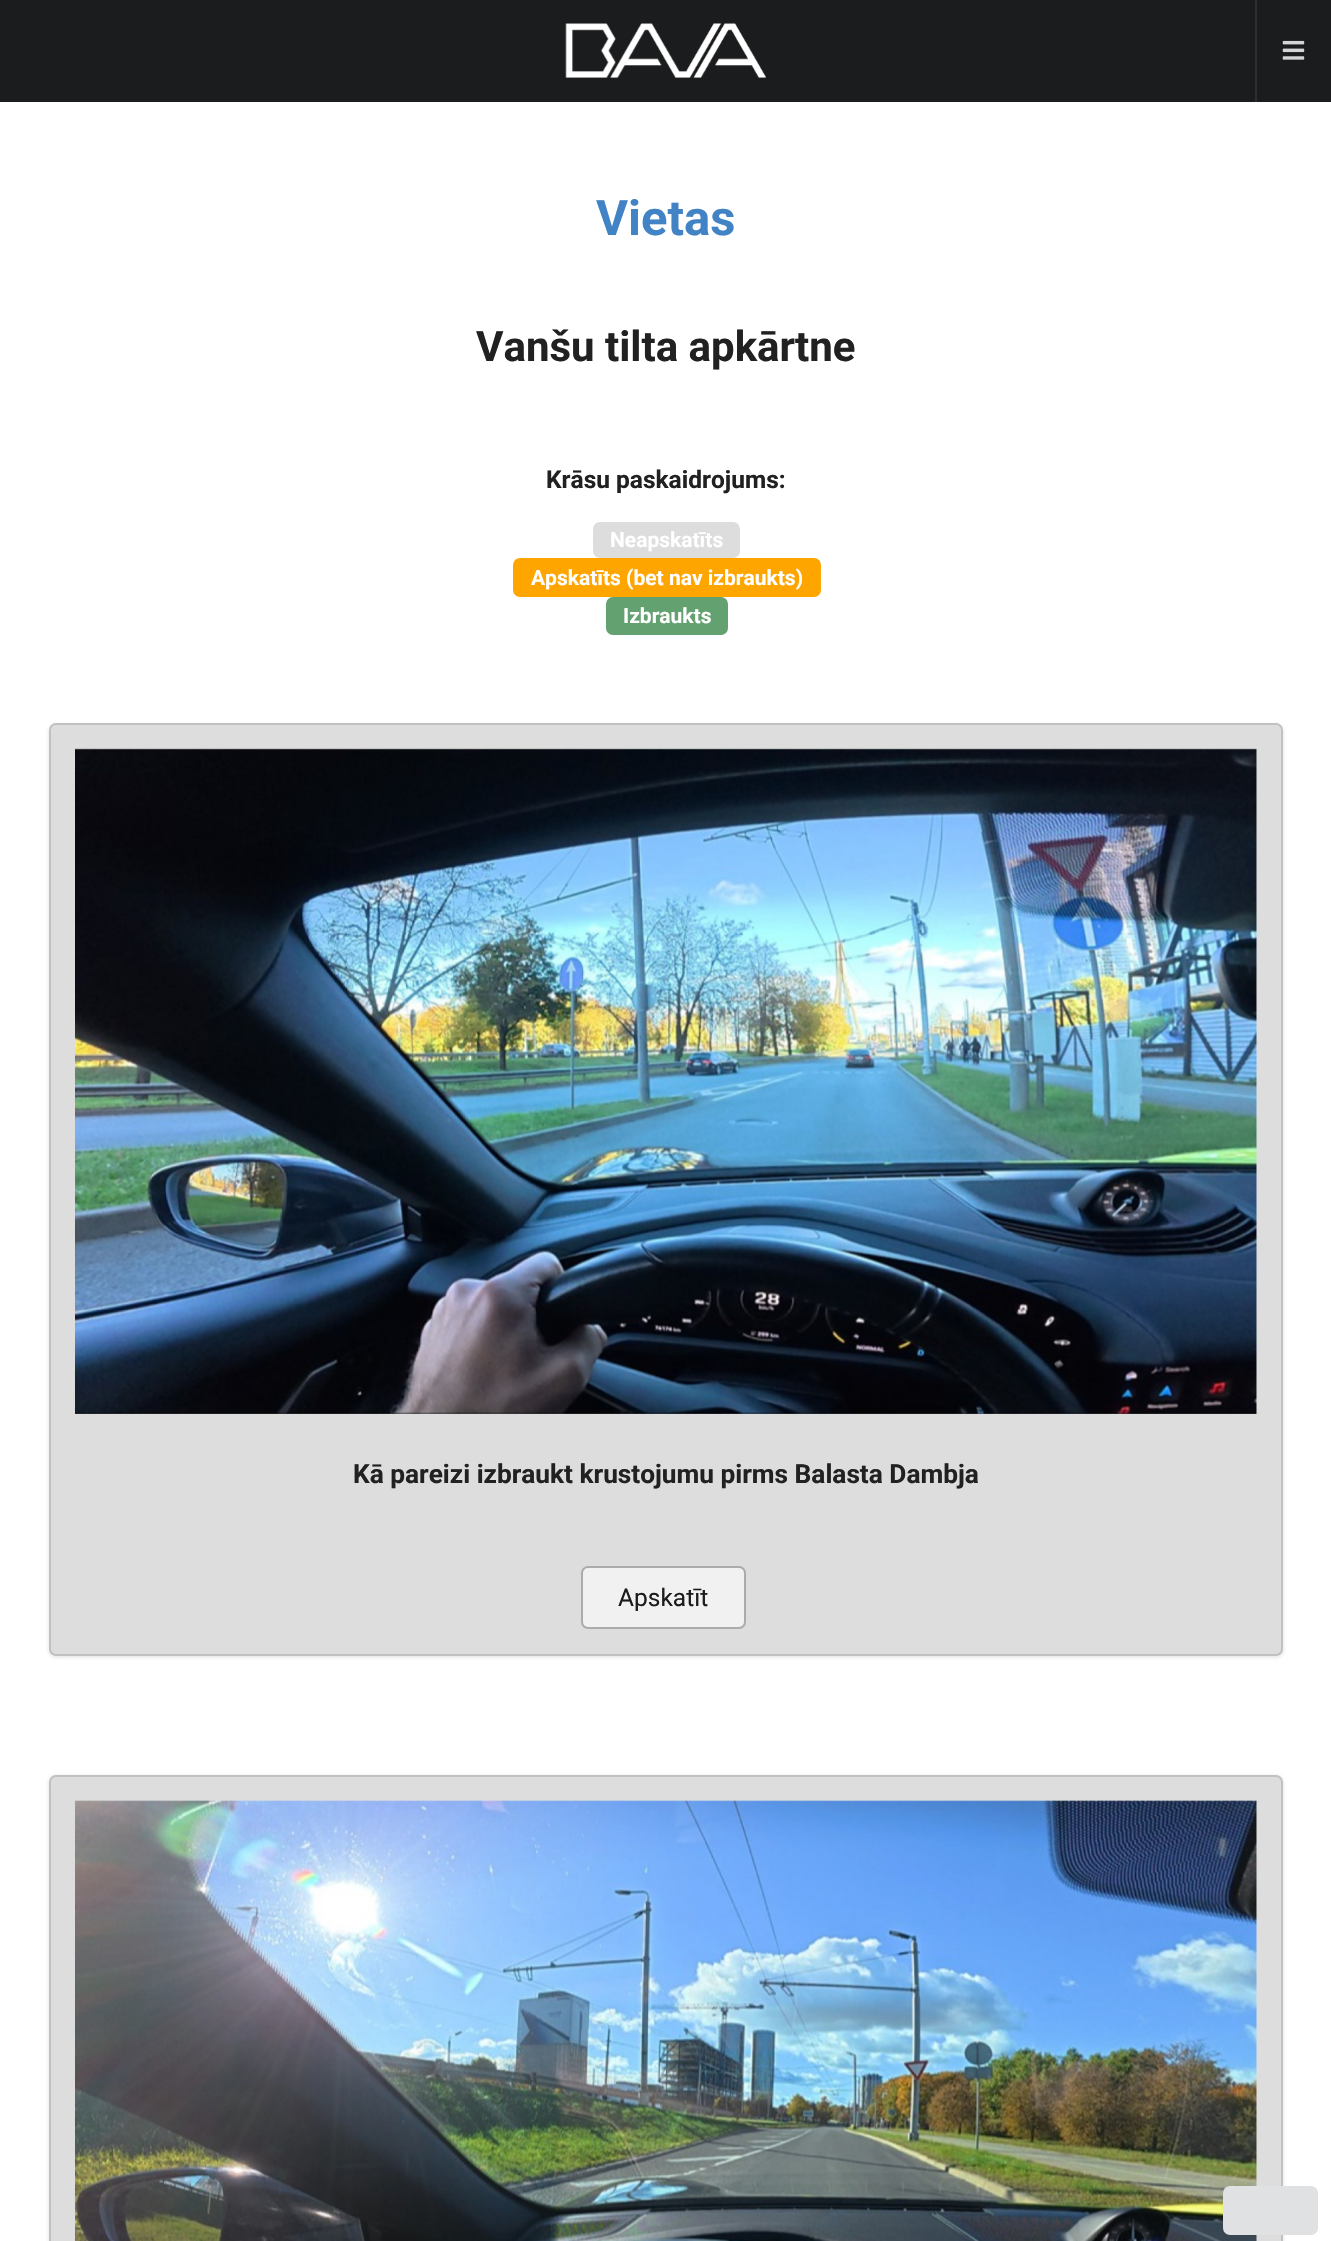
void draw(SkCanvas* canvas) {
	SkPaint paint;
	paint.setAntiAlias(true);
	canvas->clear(0xffffffff);
	paint.setColor(0xff1b1c1d);
	canvas->drawRect(SkRect::MakeXYWH(0, 0, 1331, 102), paint);
	canvas->drawImageRect(SkImages::DeferredFromEncodedData(SkData::MakeFromFileName("img1.png")), SkRect::MakeXYWH(565, 23, 201, 55), SkSamplingOptions());
	paint.setColor(0xff2d2e2f);
	canvas->drawRect(SkRect::MakeXYWH(1255, 0, 2, 102), paint);
	canvas->drawImageRect(SkImages::DeferredFromEncodedData(SkData::MakeFromFileName("img2.png")), SkRect::MakeXYWH(1282, 40, 23, 20), SkSamplingOptions());
	SkFont f1(fontMgr->matchFamilyStyle("Roboto", SkFontStyle::Bold()), 49);
	f1.setSubpixel(true);
	paint.setColor(0xff4183c4);
	canvas->drawString("Vietas", 596, 235, f1, paint);
	SkFont f2(fontMgr->matchFamilyStyle("Roboto", SkFontStyle::Bold()), 42);
	f2.setSubpixel(true);
	paint.setColor(0xff212121);
	canvas->drawString("Vanšu tilta apkārtne", 476, 361, f2, paint);
	SkFont f3(fontMgr->matchFamilyStyle("Roboto", SkFontStyle::Bold()), 24.5);
	f3.setSubpixel(true);
	canvas->drawString("Krāsu paskaidrojums:", 546, 488, f3, paint);
	paint.setColor(0xffdddddd);
	canvas->drawRoundRect(SkRect::MakeXYWH(593, 522, 147, 36), 7, 7, paint);
	SkFont f4(fontMgr->matchFamilyStyle("Roboto", SkFontStyle::Bold()), 21);
	f4.setSubpixel(true);
	paint.setColor(0xffffffff);
	canvas->drawString("Neapskatīts", 610, 547, f4, paint);
	paint.setColor(0xffffa500);
	canvas->drawRoundRect(SkRect::MakeXYWH(513, 558, 308, 39), 7, 7, paint);
	paint.setColor(0xffffffff);
	canvas->drawString("Apskatīts (bet nav izbraukts)", 531, 585, f4, paint);
	paint.setColor(0xff64a170);
	canvas->drawRoundRect(SkRect::MakeXYWH(606, 597, 122, 38), 7, 7, paint);
	paint.setColor(0xffffffff);
	canvas->drawString("Izbraukts", 623, 623, f4, paint);
	paint.setColor(0x26222426);
	paint.setMaskFilter(SkMaskFilter::MakeBlur(kNormal_SkBlurStyle, 2));
	canvas->drawRoundRect(SkRect::MakeXYWH(49, 725, 1234, 932), 7, 7, paint);
	paint.setMaskFilter(nullptr);
	paint.setColor(0xffdddddd);
	canvas->drawRoundRect(SkRect::MakeXYWH(49, 723, 1234, 933), 7, 7, paint);
	paint.setStroke(true);
	paint.setStrokeWidth(2);
	paint.setColor(0x26222426);
	canvas->drawRoundRect(SkRect::MakeXYWH(50, 724, 1232, 931), 6, 6, paint);
	canvas->drawImageRect(SkImages::DeferredFromEncodedData(SkData::MakeFromFileName("img3.png")), SkRect::MakeXYWH(75, 748, 1182, 666), SkSamplingOptions());
	SkFont f5(fontMgr->matchFamilyStyle("Roboto", SkFontStyle::Bold()), 26.25);
	f5.setSubpixel(true);
	paint.setStroke(false);
	paint.setColor(0xff212121);
	canvas->drawString("Kā pareizi izbraukt krustojumu pirms Balasta Dambja", 353, 1483, f5, paint);
	paint.setColor(0xfff1f1f1);
	canvas->drawRoundRect(SkRect::MakeXYWH(582, 1567, 163, 61), 6, 6, paint);
	paint.setStroke(true);
	paint.setColor(0xffababab);
	canvas->drawRoundRect(SkRect::MakeXYWH(582, 1567, 163, 61), 6, 6, paint);
	SkFont f6(fontMgr->matchFamilyStyle("Roboto", SkFontStyle::Normal()), 24.5);
	f6.setSubpixel(true);
	paint.setStroke(false);
	paint.setColor(0xff1b1c1d);
	canvas->drawString("Apskatīt", 618, 1606, f6, paint);
	paint.setColor(0x26222426);
	paint.setMaskFilter(SkMaskFilter::MakeBlur(kNormal_SkBlurStyle, 2));
	canvas->drawRoundRect(SkRect::MakeXYWH(49, 1776, 1234, 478), 7, 7, paint);
	paint.setMaskFilter(nullptr);
	paint.setColor(0xffdddddd);
	canvas->drawRoundRect(SkRect::MakeXYWH(49, 1775, 1234, 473), 7, 7, paint);
	paint.setStroke(true);
	paint.setColor(0x26222426);
	canvas->drawRoundRect(SkRect::MakeXYWH(50, 1776, 1232, 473), 6, 6, paint);
	canvas->drawImageRect(SkImages::DeferredFromEncodedData(SkData::MakeFromFileName("img4.png")), SkRect::MakeXYWH(75, 1800, 1182, 441), SkSamplingOptions());
	paint.setStroke(false);
	paint.setColor(0xffe0e1e2);
	canvas->drawRoundRect(SkRect::MakeXYWH(1223, 2186, 95, 49), 7, 7, paint);
}
